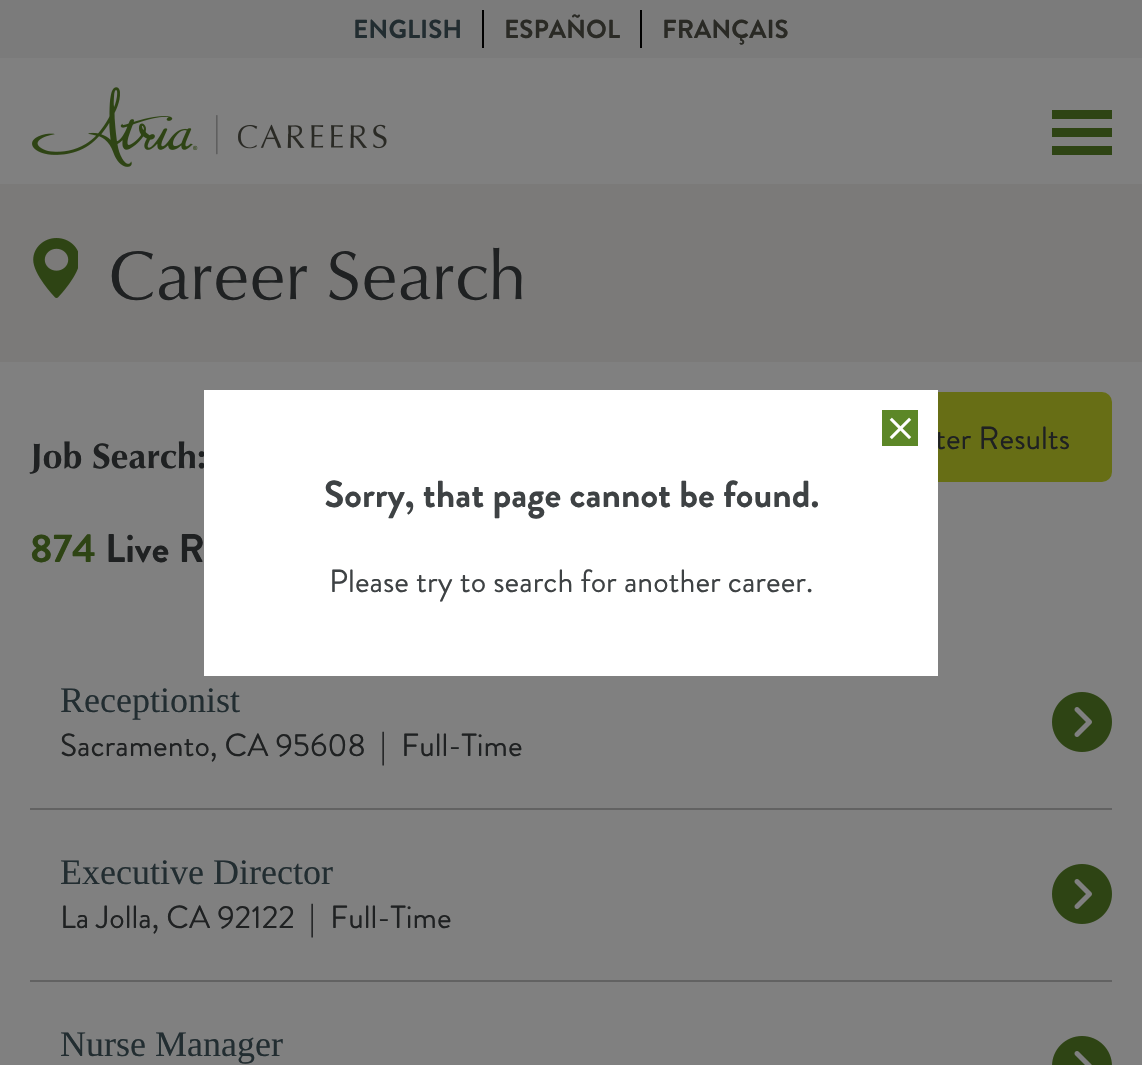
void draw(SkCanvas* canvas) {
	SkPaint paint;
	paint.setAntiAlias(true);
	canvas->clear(0xff808080);
	paint.setColor(0xff7b7b7b);
	canvas->drawRect(SkRect::MakeXYWH(0, 0, 1142, 58), paint);
	SkFont f1(fontMgr->matchFamilyStyle("Brandon Grotesque", SkFontStyle::Bold()), 26);
	f1.setSubpixel(true);
	paint.setColor(0xff222d31);
	canvas->drawString("ENGLISH", 353, 38, f1, paint);
	paint.setColor(0xff2a2a25);
	canvas->drawString("ESPAÑOL", 504, 38, f1, paint);
	paint.setColor(0xff000000);
	canvas->drawRect(SkRect::MakeXYWH(482, 10, 2, 38), paint);
	paint.setColor(0xff2a2a25);
	canvas->drawString("FRANÇAIS", 662, 38, f1, paint);
	paint.setColor(0xff000000);
	canvas->drawRect(SkRect::MakeXYWH(640, 10, 2, 38), paint);
	canvas->drawImageRect(SkImages::DeferredFromEncodedData(SkData::MakeFromFileName("img1.png")), SkRect::MakeXYWH(32, 87, 355, 80), SkSamplingOptions());
	paint.setColor(0xff2e4414);
	canvas->drawRect(SkRect::MakeXYWH(1052, 110, 60, 9), paint);
	canvas->drawRect(SkRect::MakeXYWH(1052, 128, 60, 9), paint);
	canvas->drawRect(SkRect::MakeXYWH(1052, 146, 60, 9), paint);
	paint.setColor(0xff7b7a79);
	canvas->drawRect(SkRect::MakeXYWH(0, 184, 1142, 178), paint);
	canvas->drawImageRect(SkImages::DeferredFromEncodedData(SkData::MakeFromFileName("img2.png")), SkRect::MakeXYWH(33, 238, 45, 60), SkSamplingOptions());
	SkFont f2(fontMgr->matchFamilyStyle("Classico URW", SkFontStyle::Normal()), 70);
	f2.setSubpixel(true);
	paint.setColor(0xff1f2122);
	canvas->drawString("Career Search", 108, 299, f2, paint);
	paint.setColor(0xff676e15);
	canvas->drawRoundRect(SkRect::MakeXYWH(863, 393, 248, 88), 9, 9, paint);
	paint.setStroke(true);
	paint.setStrokeWidth(2);
	canvas->drawRoundRect(SkRect::MakeXYWH(863, 393, 248, 88), 9, 9, paint);
	SkFont f3(fontMgr->matchFamilyStyle("Brandon Grotesque", SkFontStyle::Normal()), 32);
	f3.setSubpixel(true);
	paint.setStroke(false);
	paint.setColor(0xff1f2122);
	canvas->drawString("ter Results", 935, 449, f3, paint);
	SkFont f4(fontMgr->matchFamilyStyle("Classico URW", SkFontStyle::Bold()), 36);
	f4.setSubpixel(true);
	canvas->drawString("Job Search:", 30, 468, f4, paint);
	SkFont f5(fontMgr->matchFamilyStyle("Brandon Grotesque", SkFontStyle::Bold()), 40);
	f5.setSubpixel(true);
	paint.setColor(0xff2e4414);
	canvas->drawString("874", 30, 562, f5, paint);
	paint.setColor(0xff1f2122);
	canvas->drawString("Live R", 105, 562, f5, paint);
	SkFont f6(fontMgr->matchFamilyStyle("Liberation Serif", SkFontStyle::Normal()), 36);
	f6.setSubpixel(true);
	paint.setColor(0xff222d31);
	canvas->drawString("Receptionist", 60, 712, f6, paint);
	canvas->drawImageRect(SkImages::DeferredFromEncodedData(SkData::MakeFromFileName("img3.png")), SkRect::MakeXYWH(1052, 692, 60, 60), SkSamplingOptions());
	paint.setColor(0xff1f2122);
	canvas->drawString("Sacramento, CA 95608", 60, 756, f3, paint);
	canvas->drawString("|", 380, 756, f3, paint);
	canvas->drawString("Full-Time", 401, 756, f3, paint);
	paint.setColor(0xff626262);
	canvas->drawRect(SkRect::MakeXYWH(30, 808, 1082, 2), paint);
	paint.setColor(0xff222d31);
	canvas->drawString("Executive Director", 60, 884, f6, paint);
	canvas->drawImageRect(SkImages::DeferredFromEncodedData(SkData::MakeFromFileName("img3.png")), SkRect::MakeXYWH(1052, 864, 60, 60), SkSamplingOptions());
	paint.setColor(0xff1f2122);
	canvas->drawString("La Jolla, CA 92122", 60, 928, f3, paint);
	canvas->drawString("|", 309, 928, f3, paint);
	canvas->drawString("Full-Time", 330, 928, f3, paint);
	paint.setColor(0xff626262);
	canvas->drawRect(SkRect::MakeXYWH(30, 980, 1082, 2), paint);
	paint.setColor(0xff222d31);
	canvas->drawString("Nurse Manager", 60, 1056, f6, paint);
	canvas->drawImageRect(SkImages::DeferredFromEncodedData(SkData::MakeFromFileName("img4.png")), SkRect::MakeXYWH(1052, 1036, 60, 29), SkSamplingOptions());
	paint.setColor(0xffffffff);
	canvas->drawRect(SkRect::MakeXYWH(204, 390, 734, 286), paint);
	canvas->drawImageRect(SkImages::DeferredFromEncodedData(SkData::MakeFromFileName("img5.png")), SkRect::MakeXYWH(882, 410, 36, 36), SkSamplingOptions());
	SkFont f7(fontMgr->matchFamilyStyle("Brandon Grotesque", SkFontStyle::Bold()), 37.5);
	f7.setSubpixel(true);
	paint.setColor(0xff3e4244);
	canvas->drawString("Sorry, that page cannot be found.", 324, 507, f7, paint);
	canvas->drawString("Please try to search for another career.", 329, 592, f3, paint);
}
